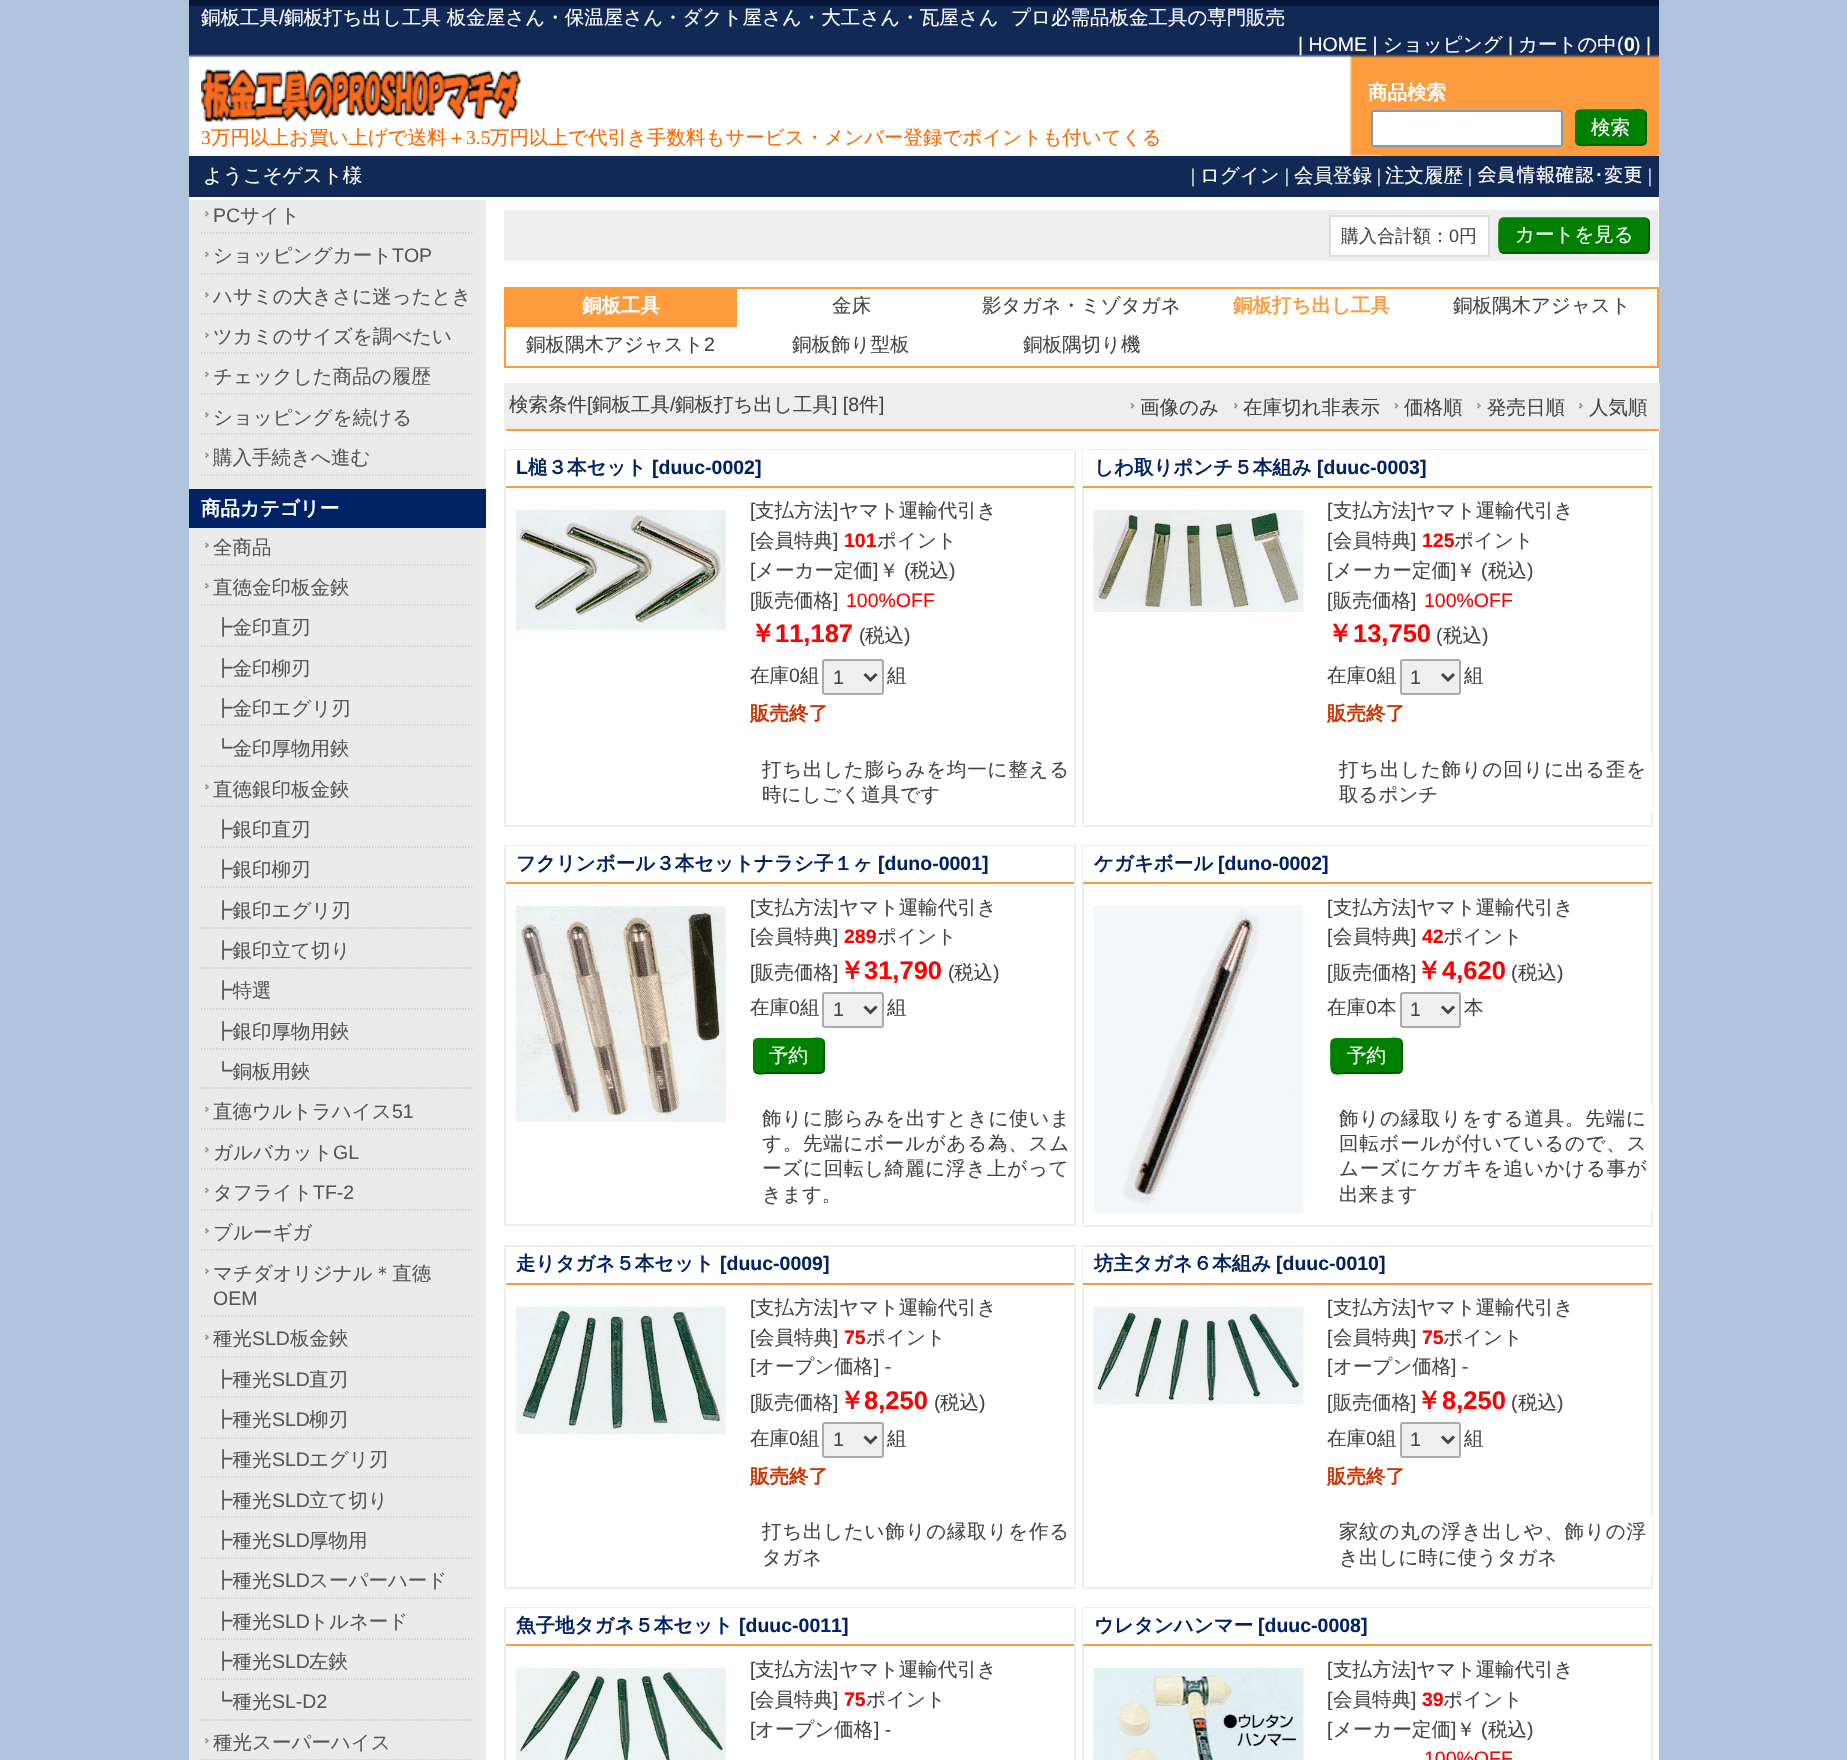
void draw(SkCanvas* canvas) {
	SkPaint paint;
	paint.setAntiAlias(true);
	auto spacedText = [&](const char* s, float x, float y, const SkFont& font, const SkPaint& ink, float letter, float word) {
		std::vector<SkGlyphID> glyphs(font.countText(s, strlen(s), SkTextEncoding::kUTF8));
		std::vector<float> xs(glyphs.size());
		font.textToGlyphs(s, strlen(s), SkTextEncoding::kUTF8, glyphs);
		font.getXPos(glyphs, xs, x);
		float extra = 0;
		for (size_t i = 0; i < glyphs.size(); i++) {
			xs[i] += extra;
			extra += letter + word * (glyphs[i] == font.unicharToGlyph(' '));
		}
		canvas->drawTextBlob(SkTextBlob::MakeFromPosHGlyphs(glyphs, xs, y, font), 0, 0, ink);
	};
	auto svgPath = [&](const char* data, bool evenOdd = false) {
		SkPath result = *SkParsePath::FromSVGString(data);
		if (evenOdd) result.setFillType(SkPathFillType::kEvenOdd);
		return result;
	};
	canvas->clear(0xffb0c4de);
	paint.setColor(0xffffffff);
	canvas->drawRect(SkRect::MakeXYWH(189, 197, 1470, 1563), paint);
	paint.setColor(0xff0a173c);
	canvas->drawRect(SkRect::MakeXYWH(189, 0, 1470, 6), paint);
	canvas->drawImageRect(SkImages::DeferredFromEncodedData(SkData::MakeFromFileName("img1.png")), SkRect::MakeXYWH(189, 6, 1470, 150), SkSamplingOptions());
	SkFont f1(fontMgr->matchFamilyStyle("WenQuanYi Zen Hei", SkFontStyle(500, SkFontStyle::kNormal_Width, SkFontStyle::kUpright_Slant)), 19.5);
	f1.setSubpixel(true);
	paint.setColor(0xffffffff);
	canvas->drawString("銅板工具", 201, 24, f1, paint);
	SkFont f2(fontMgr->matchFamilyStyle("Liberation Sans", SkFontStyle::Normal()), 19.5);
	f2.setSubpixel(true);
	canvas->drawString("/", 279, 24, f2, paint);
	canvas->drawString("銅板打ち出し工具 板金屋さん・保温屋さん・ダクト屋さん・大工さん・瓦屋さん", 284, 24, f1, paint);
	canvas->drawString("プロ必需品板金工具の専門販売", 1011, 24, f1, paint);
	canvas->drawString("| HOME |", 1298, 51, f2, paint);
	canvas->drawString("ショッピング", 1383, 51, f1, paint);
	canvas->drawString("|", 1508, 51, f2, paint);
	canvas->drawString("カートの中", 1518, 51, f1, paint);
	canvas->drawString("(", 1617, 51, f2, paint);
	SkFont f3(fontMgr->matchFamilyStyle("Liberation Sans", SkFontStyle::Bold()), 19.5);
	f3.setSubpixel(true);
	canvas->drawString("0", 1624, 51, f3, paint);
	canvas->drawString(") |", 1634, 51, f2, paint);
	canvas->drawImageRect(SkImages::DeferredFromEncodedData(SkData::MakeFromFileName("img2.png")), SkRect::MakeXYWH(201, 69, 320, 53), SkSamplingOptions());
	SkFont f4(fontMgr->matchFamilyStyle("Liberation Serif", SkFontStyle::Normal()), 19.5);
	f4.setSubpixel(true);
	paint.setColor(0xffff6600);
	canvas->drawString("3", 201, 144, f4, paint);
	canvas->drawString("万円以上お買い上げで送料＋", 211, 144, f1, paint);
	canvas->drawString("3.5", 466, 144, f4, paint);
	canvas->drawString("万円以上で代引き手数料もサービス・メンバー登録でポイントも付いてくる", 490, 144, f1, paint);
	SkFont f5(fontMgr->matchFamilyStyle("WenQuanYi Zen Hei", SkFontStyle::Bold()), 19.5);
	f5.setSubpixel(true);
	paint.setColor(0xffffffff);
	canvas->drawString("商品検索", 1368, 99, f5, paint);
	canvas->drawRoundRect(SkRect::MakeXYWH(1372, 111, 190, 35), 2, 2, paint);
	paint.setStroke(true);
	paint.setStrokeWidth(2);
	paint.setColor(0xff7f9db9);
	canvas->drawRoundRect(SkRect::MakeXYWH(1372, 111, 190, 35), 2, 2, paint);
	paint.setStroke(false);
	paint.setColor(0xff008000);
	canvas->drawRoundRect(SkRect::MakeXYWH(1575, 110, 72, 36), 5, 5, paint);
	paint.setStroke(true);
	paint.setStrokeWidth(1.5);
	paint.setColor(0xff005500);
	canvas->drawPath(svgPath("M1645 111.5C1647.5 113.5 1646 124.5 1646 127.5C1646 146 1649.5 145 1632 145H1590C1590 145 1579.5 146.5 1577 143.5"), paint);
	paint.setColor(0xff008000);
	canvas->drawPath(svgPath("M1577 143.5C1574.5 141.5 1576 130.5 1576 127.5C1576 109 1572.5 110 1590 110H1632C1632 110 1642.5 108.5 1645 111.5"), paint);
	paint.setStroke(false);
	paint.setColor(0xffffffff);
	canvas->drawString("検索", 1591, 134, f1, paint);
	paint.setColor(0xff122955);
	canvas->drawRect(SkRect::MakeXYWH(189, 156, 1470, 41), paint);
	paint.setColor(0xffffffff);
	canvas->drawString("ようこそゲスト様", 203, 182, f1, paint);
	canvas->drawString("|", 1191, 182, f4, paint);
	canvas->drawString("ログイン", 1200, 182, f1, paint);
	canvas->drawString("|", 1285, 182, f4, paint);
	canvas->drawString("会員登録", 1294, 182, f1, paint);
	canvas->drawString("|", 1377, 182, f4, paint);
	canvas->drawString("注文履歴", 1385, 182, f1, paint);
	canvas->drawString("|", 1468, 182, f4, paint);
	SkFont f6(fontMgr->matchFamilyStyle("IPAPGothic", SkFontStyle::Normal()), 19.5);
	f6.setSubpixel(true);
	canvas->drawString("会員情報確認･変更", 1477, 182, f6, paint);
	canvas->drawString("|", 1648, 182, f4, paint);
	paint.setColor(0xffebebeb);
	canvas->drawRect(SkRect::MakeXYWH(189, 200, 297, 1560), paint);
	canvas->drawImageRect(SkImages::DeferredFromEncodedData(SkData::MakeFromFileName("img3.png")), SkRect::MakeXYWH(205, 211, 4, 6), SkSamplingOptions());
	paint.setStroke(true);
	paint.setColor(0xffcccccc);
	paint.setPathEffect(SkDashPathEffect::Make({{1.5f, 1.5f}}, 0));
	canvas->drawPath(svgPath("M201 233H474"), paint);
	paint.setPathEffect(nullptr);
	paint.setStroke(false);
	paint.setColor(0xff555555);
	canvas->drawString("PC", 213, 222, f2, paint);
	canvas->drawString("サイト", 240, 222, f1, paint);
	canvas->drawImageRect(SkImages::DeferredFromEncodedData(SkData::MakeFromFileName("img4.png")), SkRect::MakeXYWH(205, 251, 4, 6), SkSamplingOptions());
	paint.setStroke(true);
	paint.setColor(0xffcccccc);
	paint.setPathEffect(SkDashPathEffect::Make({{1.5f, 1.5f}}, 0));
	canvas->drawPath(svgPath("M201 274H474"), paint);
	paint.setPathEffect(nullptr);
	paint.setStroke(false);
	paint.setColor(0xff555555);
	canvas->drawString("ショッピングカート", 213, 262, f1, paint);
	canvas->drawString("TOP", 392, 262, f2, paint);
	canvas->drawImageRect(SkImages::DeferredFromEncodedData(SkData::MakeFromFileName("img3.png")), SkRect::MakeXYWH(205, 292, 4, 6), SkSamplingOptions());
	paint.setStroke(true);
	paint.setColor(0xffcccccc);
	paint.setPathEffect(SkDashPathEffect::Make({{1.5f, 1.5f}}, 0));
	canvas->drawPath(svgPath("M201 314H474"), paint);
	paint.setPathEffect(nullptr);
	paint.setStroke(false);
	paint.setColor(0xff555555);
	canvas->drawString("ハサミの大きさに迷ったとき", 213, 303, f1, paint);
	canvas->drawImageRect(SkImages::DeferredFromEncodedData(SkData::MakeFromFileName("img4.png")), SkRect::MakeXYWH(205, 332, 4, 6), SkSamplingOptions());
	paint.setStroke(true);
	paint.setColor(0xffcccccc);
	paint.setPathEffect(SkDashPathEffect::Make({{1.5f, 1.5f}}, 0));
	canvas->drawPath(svgPath("M201 353H474"), paint);
	paint.setPathEffect(nullptr);
	paint.setStroke(false);
	paint.setColor(0xff555555);
	canvas->drawString("ツカミのサイズを調べたい", 213, 343, f1, paint);
	canvas->drawImageRect(SkImages::DeferredFromEncodedData(SkData::MakeFromFileName("img4.png")), SkRect::MakeXYWH(205, 371, 4, 6), SkSamplingOptions());
	paint.setStroke(true);
	paint.setColor(0xffcccccc);
	paint.setPathEffect(SkDashPathEffect::Make({{1.5f, 1.5f}}, 0));
	canvas->drawPath(svgPath("M201 394H474"), paint);
	paint.setPathEffect(nullptr);
	paint.setStroke(false);
	paint.setColor(0xff555555);
	canvas->drawString("チェックした商品の履歴", 213, 383, f1, paint);
	canvas->drawImageRect(SkImages::DeferredFromEncodedData(SkData::MakeFromFileName("img3.png")), SkRect::MakeXYWH(205, 412, 4, 6), SkSamplingOptions());
	paint.setStroke(true);
	paint.setColor(0xffcccccc);
	paint.setPathEffect(SkDashPathEffect::Make({{1.5f, 1.5f}}, 0));
	canvas->drawPath(svgPath("M201 434H474"), paint);
	paint.setPathEffect(nullptr);
	paint.setStroke(false);
	paint.setColor(0xff555555);
	canvas->drawString("ショッピングを続ける", 213, 424, f1, paint);
	canvas->drawImageRect(SkImages::DeferredFromEncodedData(SkData::MakeFromFileName("img4.png")), SkRect::MakeXYWH(205, 452, 4, 6), SkSamplingOptions());
	paint.setStroke(true);
	paint.setColor(0xffcccccc);
	paint.setPathEffect(SkDashPathEffect::Make({{1.5f, 1.5f}}, 0));
	canvas->drawPath(svgPath("M201 475H474"), paint);
	paint.setPathEffect(nullptr);
	paint.setStroke(false);
	paint.setColor(0xff555555);
	canvas->drawString("購入手続きへ進む", 213, 464, f1, paint);
	paint.setColor(0xff002368);
	canvas->drawRect(SkRect::MakeXYWH(189, 489, 297, 39), paint);
	paint.setColor(0xffffffff);
	canvas->drawString("商品カテゴリー", 201, 515, f5, paint);
	canvas->drawImageRect(SkImages::DeferredFromEncodedData(SkData::MakeFromFileName("img4.png")), SkRect::MakeXYWH(205, 542, 4, 6), SkSamplingOptions());
	paint.setStroke(true);
	paint.setColor(0xffcccccc);
	paint.setPathEffect(SkDashPathEffect::Make({{1.5f, 1.5f}}, 0));
	canvas->drawPath(svgPath("M201 565H474"), paint);
	paint.setPathEffect(nullptr);
	paint.setStroke(false);
	paint.setColor(0xff555555);
	canvas->drawString("全商品", 213, 554, f1, paint);
	canvas->drawImageRect(SkImages::DeferredFromEncodedData(SkData::MakeFromFileName("img3.png")), SkRect::MakeXYWH(205, 583, 4, 6), SkSamplingOptions());
	paint.setStroke(true);
	paint.setColor(0xffcccccc);
	paint.setPathEffect(SkDashPathEffect::Make({{1.5f, 1.5f}}, 0));
	canvas->drawPath(svgPath("M201 605H474"), paint);
	paint.setPathEffect(nullptr);
	paint.setStroke(false);
	paint.setColor(0xff555555);
	canvas->drawString("直徳金印板金鋏", 213, 594, f1, paint);
	paint.setStroke(true);
	paint.setColor(0xffcccccc);
	paint.setPathEffect(SkDashPathEffect::Make({{1.5f, 1.5f}}, 0));
	canvas->drawPath(svgPath("M201 646H474"), paint);
	paint.setPathEffect(nullptr);
	paint.setStroke(false);
	paint.setColor(0xff555555);
	canvas->drawString("┣金印直刃", 213, 634, f1, paint);
	paint.setStroke(true);
	paint.setColor(0xffcccccc);
	paint.setPathEffect(SkDashPathEffect::Make({{1.5f, 1.5f}}, 0));
	canvas->drawPath(svgPath("M201 686H474"), paint);
	paint.setPathEffect(nullptr);
	paint.setStroke(false);
	paint.setColor(0xff555555);
	canvas->drawString("┣金印柳刃", 213, 675, f1, paint);
	paint.setStroke(true);
	paint.setColor(0xffcccccc);
	paint.setPathEffect(SkDashPathEffect::Make({{1.5f, 1.5f}}, 0));
	canvas->drawPath(svgPath("M201 725H474"), paint);
	paint.setPathEffect(nullptr);
	paint.setStroke(false);
	paint.setColor(0xff555555);
	canvas->drawString("┣金印エグリ刃", 213, 715, f1, paint);
	paint.setStroke(true);
	paint.setColor(0xffcccccc);
	paint.setPathEffect(SkDashPathEffect::Make({{1.5f, 1.5f}}, 0));
	canvas->drawPath(svgPath("M201 766H474"), paint);
	paint.setPathEffect(nullptr);
	paint.setStroke(false);
	paint.setColor(0xff555555);
	canvas->drawString("┗金印厚物用鋏", 213, 755, f1, paint);
	canvas->drawImageRect(SkImages::DeferredFromEncodedData(SkData::MakeFromFileName("img3.png")), SkRect::MakeXYWH(205, 784, 4, 6), SkSamplingOptions());
	paint.setStroke(true);
	paint.setColor(0xffcccccc);
	paint.setPathEffect(SkDashPathEffect::Make({{1.5f, 1.5f}}, 0));
	canvas->drawPath(svgPath("M201 806H474"), paint);
	paint.setPathEffect(nullptr);
	paint.setStroke(false);
	paint.setColor(0xff555555);
	canvas->drawString("直徳銀印板金鋏", 213, 796, f1, paint);
	paint.setStroke(true);
	paint.setColor(0xffcccccc);
	paint.setPathEffect(SkDashPathEffect::Make({{1.5f, 1.5f}}, 0));
	canvas->drawPath(svgPath("M201 847H474"), paint);
	paint.setPathEffect(nullptr);
	paint.setStroke(false);
	paint.setColor(0xff555555);
	canvas->drawString("┣銀印直刃", 213, 836, f1, paint);
	paint.setStroke(true);
	paint.setColor(0xffcccccc);
	paint.setPathEffect(SkDashPathEffect::Make({{1.5f, 1.5f}}, 0));
	canvas->drawPath(svgPath("M201 887H474"), paint);
	paint.setPathEffect(nullptr);
	paint.setStroke(false);
	paint.setColor(0xff555555);
	canvas->drawString("┣銀印柳刃", 213, 876, f1, paint);
	paint.setStroke(true);
	paint.setColor(0xffcccccc);
	paint.setPathEffect(SkDashPathEffect::Make({{1.5f, 1.5f}}, 0));
	canvas->drawPath(svgPath("M201 928H474"), paint);
	paint.setPathEffect(nullptr);
	paint.setStroke(false);
	paint.setColor(0xff555555);
	canvas->drawString("┣銀印エグリ刃", 213, 917, f1, paint);
	paint.setStroke(true);
	paint.setColor(0xffcccccc);
	paint.setPathEffect(SkDashPathEffect::Make({{1.5f, 1.5f}}, 0));
	canvas->drawPath(svgPath("M201 968H474"), paint);
	paint.setPathEffect(nullptr);
	paint.setStroke(false);
	paint.setColor(0xff555555);
	canvas->drawString("┣銀印立て切り", 213, 957, f1, paint);
	paint.setStroke(true);
	paint.setColor(0xffcccccc);
	paint.setPathEffect(SkDashPathEffect::Make({{1.5f, 1.5f}}, 0));
	canvas->drawPath(svgPath("M201 1009H474"), paint);
	paint.setPathEffect(nullptr);
	paint.setStroke(false);
	paint.setColor(0xff555555);
	canvas->drawString("┣特選", 213, 997, f1, paint);
	paint.setStroke(true);
	paint.setColor(0xffcccccc);
	paint.setPathEffect(SkDashPathEffect::Make({{1.5f, 1.5f}}, 0));
	canvas->drawPath(svgPath("M201 1049H474"), paint);
	paint.setPathEffect(nullptr);
	paint.setStroke(false);
	paint.setColor(0xff555555);
	canvas->drawString("┣銀印厚物用鋏", 213, 1038, f1, paint);
	paint.setStroke(true);
	paint.setColor(0xffcccccc);
	paint.setPathEffect(SkDashPathEffect::Make({{1.5f, 1.5f}}, 0));
	canvas->drawPath(svgPath("M201 1088H474"), paint);
	paint.setPathEffect(nullptr);
	paint.setStroke(false);
	paint.setColor(0xff555555);
	canvas->drawString("┗銅板用鋏", 213, 1078, f1, paint);
	canvas->drawImageRect(SkImages::DeferredFromEncodedData(SkData::MakeFromFileName("img4.png")), SkRect::MakeXYWH(205, 1106, 4, 6), SkSamplingOptions());
	paint.setStroke(true);
	paint.setColor(0xffcccccc);
	paint.setPathEffect(SkDashPathEffect::Make({{1.5f, 1.5f}}, 0));
	canvas->drawPath(svgPath("M201 1129H474"), paint);
	paint.setPathEffect(nullptr);
	paint.setStroke(false);
	paint.setColor(0xff555555);
	canvas->drawString("直徳ウルトラハイス", 213, 1118, f1, paint);
	canvas->drawString("51", 392, 1118, f2, paint);
	canvas->drawImageRect(SkImages::DeferredFromEncodedData(SkData::MakeFromFileName("img3.png")), SkRect::MakeXYWH(205, 1147, 4, 6), SkSamplingOptions());
	paint.setStroke(true);
	paint.setColor(0xffcccccc);
	paint.setPathEffect(SkDashPathEffect::Make({{1.5f, 1.5f}}, 0));
	canvas->drawPath(svgPath("M201 1169H474"), paint);
	paint.setPathEffect(nullptr);
	paint.setStroke(false);
	paint.setColor(0xff555555);
	canvas->drawString("ガルバカット", 213, 1159, f1, paint);
	canvas->drawString("GL", 333, 1159, f2, paint);
	canvas->drawImageRect(SkImages::DeferredFromEncodedData(SkData::MakeFromFileName("img4.png")), SkRect::MakeXYWH(205, 1187, 4, 6), SkSamplingOptions());
	paint.setStroke(true);
	paint.setColor(0xffcccccc);
	paint.setPathEffect(SkDashPathEffect::Make({{1.5f, 1.5f}}, 0));
	canvas->drawPath(svgPath("M201 1210H474"), paint);
	paint.setPathEffect(nullptr);
	paint.setStroke(false);
	paint.setColor(0xff555555);
	canvas->drawString("タフライト", 213, 1199, f1, paint);
	canvas->drawString("TF-2", 313, 1199, f2, paint);
	canvas->drawImageRect(SkImages::DeferredFromEncodedData(SkData::MakeFromFileName("img3.png")), SkRect::MakeXYWH(205, 1228, 4, 6), SkSamplingOptions());
	paint.setStroke(true);
	paint.setColor(0xffcccccc);
	paint.setPathEffect(SkDashPathEffect::Make({{1.5f, 1.5f}}, 0));
	canvas->drawPath(svgPath("M201 1250H474"), paint);
	paint.setPathEffect(nullptr);
	paint.setStroke(false);
	paint.setColor(0xff555555);
	canvas->drawString("ブルーギガ", 213, 1239, f1, paint);
	canvas->drawImageRect(SkImages::DeferredFromEncodedData(SkData::MakeFromFileName("img4.png")), SkRect::MakeXYWH(205, 1268, 4, 6), SkSamplingOptions());
	paint.setStroke(true);
	paint.setColor(0xffcccccc);
	paint.setPathEffect(SkDashPathEffect::Make({{1.5f, 1.5f}}, 0));
	canvas->drawPath(svgPath("M201 1316H474"), paint);
	paint.setPathEffect(nullptr);
	paint.setStroke(false);
	paint.setColor(0xff555555);
	canvas->drawString("マチダオリジナル＊直徳", 213, 1280, f1, paint);
	canvas->drawString("OEM", 213, 1305, f2, paint);
	canvas->drawImageRect(SkImages::DeferredFromEncodedData(SkData::MakeFromFileName("img4.png")), SkRect::MakeXYWH(205, 1334, 4, 6), SkSamplingOptions());
	paint.setStroke(true);
	paint.setColor(0xffcccccc);
	paint.setPathEffect(SkDashPathEffect::Make({{1.5f, 1.5f}}, 0));
	canvas->drawPath(svgPath("M201 1357H474"), paint);
	paint.setPathEffect(nullptr);
	paint.setStroke(false);
	paint.setColor(0xff555555);
	canvas->drawString("種光", 213, 1345, f1, paint);
	canvas->drawString("SLD", 252, 1345, f2, paint);
	canvas->drawString("板金鋏", 290, 1345, f1, paint);
	paint.setStroke(true);
	paint.setColor(0xffcccccc);
	paint.setPathEffect(SkDashPathEffect::Make({{1.5f, 1.5f}}, 0));
	canvas->drawPath(svgPath("M201 1397H474"), paint);
	paint.setPathEffect(nullptr);
	paint.setStroke(false);
	paint.setColor(0xff555555);
	canvas->drawString("┣種光", 213, 1386, f1, paint);
	canvas->drawString("SLD", 272, 1386, f2, paint);
	canvas->drawString("直刃", 309, 1386, f1, paint);
	paint.setStroke(true);
	paint.setColor(0xffcccccc);
	paint.setPathEffect(SkDashPathEffect::Make({{1.5f, 1.5f}}, 0));
	canvas->drawPath(svgPath("M201 1438H474"), paint);
	paint.setPathEffect(nullptr);
	paint.setStroke(false);
	paint.setColor(0xff555555);
	canvas->drawString("┣種光", 213, 1426, f1, paint);
	canvas->drawString("SLD", 272, 1426, f2, paint);
	canvas->drawString("柳刃", 309, 1426, f1, paint);
	paint.setStroke(true);
	paint.setColor(0xffcccccc);
	paint.setPathEffect(SkDashPathEffect::Make({{1.5f, 1.5f}}, 0));
	canvas->drawPath(svgPath("M201 1477H474"), paint);
	paint.setPathEffect(nullptr);
	paint.setStroke(false);
	paint.setColor(0xff555555);
	canvas->drawString("┣種光", 213, 1466, f1, paint);
	canvas->drawString("SLD", 272, 1466, f2, paint);
	canvas->drawString("エグリ刃", 309, 1466, f1, paint);
	paint.setStroke(true);
	paint.setColor(0xffcccccc);
	paint.setPathEffect(SkDashPathEffect::Make({{1.5f, 1.5f}}, 0));
	canvas->drawPath(svgPath("M201 1517H474"), paint);
	paint.setPathEffect(nullptr);
	paint.setStroke(false);
	paint.setColor(0xff555555);
	canvas->drawString("┣種光", 213, 1507, f1, paint);
	canvas->drawString("SLD", 272, 1507, f2, paint);
	canvas->drawString("立て切り", 309, 1507, f1, paint);
	paint.setStroke(true);
	paint.setColor(0xffcccccc);
	paint.setPathEffect(SkDashPathEffect::Make({{1.5f, 1.5f}}, 0));
	canvas->drawPath(svgPath("M201 1558H474"), paint);
	paint.setPathEffect(nullptr);
	paint.setStroke(false);
	paint.setColor(0xff555555);
	canvas->drawString("┣種光", 213, 1547, f1, paint);
	canvas->drawString("SLD", 272, 1547, f2, paint);
	canvas->drawString("厚物用", 309, 1547, f1, paint);
	paint.setStroke(true);
	paint.setColor(0xffcccccc);
	paint.setPathEffect(SkDashPathEffect::Make({{1.5f, 1.5f}}, 0));
	canvas->drawPath(svgPath("M201 1598H474"), paint);
	paint.setPathEffect(nullptr);
	paint.setStroke(false);
	paint.setColor(0xff555555);
	canvas->drawString("┣種光", 213, 1587, f1, paint);
	canvas->drawString("SLD", 272, 1587, f2, paint);
	canvas->drawString("スーパーハード", 309, 1587, f1, paint);
	paint.setStroke(true);
	paint.setColor(0xffcccccc);
	paint.setPathEffect(SkDashPathEffect::Make({{1.5f, 1.5f}}, 0));
	canvas->drawPath(svgPath("M201 1639H474"), paint);
	paint.setPathEffect(nullptr);
	paint.setStroke(false);
	paint.setColor(0xff555555);
	canvas->drawString("┣種光", 213, 1628, f1, paint);
	canvas->drawString("SLD", 272, 1628, f2, paint);
	canvas->drawString("トルネード", 309, 1628, f1, paint);
	paint.setStroke(true);
	paint.setColor(0xffcccccc);
	paint.setPathEffect(SkDashPathEffect::Make({{1.5f, 1.5f}}, 0));
	canvas->drawPath(svgPath("M201 1679H474"), paint);
	paint.setPathEffect(nullptr);
	paint.setStroke(false);
	paint.setColor(0xff555555);
	canvas->drawString("┣種光", 213, 1668, f1, paint);
	canvas->drawString("SLD", 272, 1668, f2, paint);
	canvas->drawString("左鋏", 309, 1668, f1, paint);
	paint.setStroke(true);
	paint.setColor(0xffcccccc);
	paint.setPathEffect(SkDashPathEffect::Make({{1.5f, 1.5f}}, 0));
	canvas->drawPath(svgPath("M201 1720H474"), paint);
	paint.setPathEffect(nullptr);
	paint.setStroke(false);
	paint.setColor(0xff555555);
	canvas->drawString("┗種光", 213, 1708, f1, paint);
	canvas->drawString("SL-D2", 272, 1708, f2, paint);
	canvas->drawImageRect(SkImages::DeferredFromEncodedData(SkData::MakeFromFileName("img3.png")), SkRect::MakeXYWH(205, 1738, 4, 6), SkSamplingOptions());
	paint.setStroke(true);
	paint.setColor(0xffcccccc);
	paint.setPathEffect(SkDashPathEffect::Make({{1.5f, 1.5f}}, 0));
	canvas->drawPath(svgPath("M201 1760H474"), paint);
	paint.setPathEffect(nullptr);
	paint.setStroke(false);
	paint.setColor(0xff555555);
	canvas->drawString("種光スーパーハイス", 213, 1749, f1, paint);
	paint.setColor(0xffeeeeee);
	canvas->drawRect(SkRect::MakeXYWH(504, 210, 1155, 51), paint);
	paint.setColor(0xffffffff);
	canvas->drawRect(SkRect::MakeXYWH(1330, 216, 159, 40), paint);
	paint.setStroke(true);
	paint.setStrokeWidth(2);
	paint.setColor(0xffdddddd);
	canvas->drawRect(SkRect::MakeXYWH(1330, 216, 159, 40), paint);
	SkFont f7(fontMgr->matchFamilyStyle("WenQuanYi Zen Hei", SkFontStyle(500, SkFontStyle::kNormal_Width, SkFontStyle::kUpright_Slant)), 18);
	f7.setSubpixel(true);
	paint.setStroke(false);
	paint.setColor(0xff444444);
	canvas->drawString("購入合計額：", 1341, 242, f7, paint);
	SkFont f8(fontMgr->matchFamilyStyle("Liberation Sans", SkFontStyle::Normal()), 18);
	f8.setSubpixel(true);
	canvas->drawString("0", 1449, 242, f8, paint);
	canvas->drawString("円", 1459, 242, f7, paint);
	paint.setColor(0xff008000);
	canvas->drawRoundRect(SkRect::MakeXYWH(1499, 218, 151, 36), 5, 5, paint);
	paint.setStroke(true);
	paint.setStrokeWidth(1.5);
	paint.setColor(0xff005500);
	canvas->drawPath(svgPath("M1648 219.5C1650.5 221.5 1649 232.5 1649 235.5V244.5C1649 247.5 1650 252.5 1645.5 253H1503L1500.5 251.5"), paint);
	paint.setColor(0xff008000);
	canvas->drawPath(svgPath("M1500.5 251.5C1498 249.5 1499 238.5 1499 235.5V226.5C1499 223.5 1498.5 218.5 1503 218H1645.5L1648 219.5"), paint);
	paint.setStroke(false);
	paint.setColor(0xffffffff);
	canvas->drawString("カートを見る", 1515, 241, f1, paint);
	paint.setStroke(true);
	paint.setStrokeWidth(2);
	paint.setColor(0xfffc9c3e);
	canvas->drawRect(SkRect::MakeXYWH(505, 288, 1153, 79), paint);
	paint.setStroke(false);
	canvas->drawRect(SkRect::MakeXYWH(506, 289, 231, 38), paint);
	paint.setColor(0xffffffff);
	canvas->drawString("銅板工具", 582, 312, f5, paint);
	paint.setColor(0xff444444);
	canvas->drawString("金床", 832, 312, f1, paint);
	canvas->drawString("影タガネ・ミゾタガネ", 982, 312, f1, paint);
	paint.setColor(0xfffc9c3e);
	canvas->drawString("銅板打ち出し工具", 1233, 312, f5, paint);
	paint.setColor(0xff444444);
	canvas->drawString("銅板隅木アジャスト", 1453, 312, f1, paint);
	canvas->drawString("銅板隅木アジャスト", 526, 351, f1, paint);
	canvas->drawString("2", 704, 351, f2, paint);
	canvas->drawString("銅板飾り型板", 792, 351, f1, paint);
	canvas->drawString("銅板隅切り機", 1023, 351, f1, paint);
	paint.setColor(0xffeeeeee);
	canvas->drawRect(SkRect::MakeXYWH(506, 383, 1152, 46), paint);
	canvas->drawRect(SkRect::MakeXYWH(1658, 383, 2, 48), paint);
	paint.setColor(0xfffc9c3e);
	canvas->drawRect(SkRect::MakeXYWH(504, 429, 1155, 2), paint);
	paint.setColor(0xffeeeeee);
	canvas->drawRect(SkRect::MakeXYWH(504, 383, 2, 48), paint);
	paint.setColor(0xff444444);
	canvas->drawString("検索条件", 509, 411, f1, paint);
	canvas->drawString("[", 587, 411, f2, paint);
	canvas->drawString("銅板工具", 592, 411, f1, paint);
	canvas->drawString("/", 670, 411, f2, paint);
	canvas->drawString("銅板打ち出し工具", 675, 411, f1, paint);
	canvas->drawString("] [8", 832, 411, f2, paint);
	canvas->drawString("件", 859, 411, f1, paint);
	canvas->drawString("]", 879, 411, f2, paint);
	canvas->drawImageRect(SkImages::DeferredFromEncodedData(SkData::MakeFromFileName("img5.png")), SkRect::MakeXYWH(1130, 403, 5, 6), SkSamplingOptions());
	canvas->drawString("画像のみ", 1140, 414, f1, paint);
	canvas->drawImageRect(SkImages::DeferredFromEncodedData(SkData::MakeFromFileName("img6.png")), SkRect::MakeXYWH(1234, 403, 4, 6), SkSamplingOptions());
	canvas->drawString("在庫切れ非表示", 1243, 414, f1, paint);
	canvas->drawImageRect(SkImages::DeferredFromEncodedData(SkData::MakeFromFileName("img5.png")), SkRect::MakeXYWH(1394, 403, 5, 6), SkSamplingOptions());
	canvas->drawString("価格順", 1404, 414, f1, paint);
	canvas->drawImageRect(SkImages::DeferredFromEncodedData(SkData::MakeFromFileName("img6.png")), SkRect::MakeXYWH(1477, 403, 4, 6), SkSamplingOptions());
	canvas->drawString("発売日順", 1487, 414, f1, paint);
	canvas->drawImageRect(SkImages::DeferredFromEncodedData(SkData::MakeFromFileName("img7.png")), SkRect::MakeXYWH(1579, 403, 4, 6), SkSamplingOptions());
	canvas->drawString("人気順", 1589, 414, f1, paint);
	paint.setStroke(true);
	paint.setColor(0xffeeeeee);
	canvas->drawRect(SkRect::MakeXYWH(505, 450, 570, 376), paint);
	paint.setStroke(false);
	paint.setColor(0xffffffff);
	canvas->drawRect(SkRect::MakeXYWH(506, 450, 568, 1), paint);
	paint.setColor(0xfffc9c3e);
	canvas->drawRect(SkRect::MakeXYWH(506, 486, 568, 2), paint);
	paint.setColor(0xff002368);
	canvas->drawString("L", 516, 474, f3, paint);
	canvas->drawString("槌３本セット", 528, 474, f5, paint);
	canvas->drawString("[duuc-0002]", 652, 474, f3, paint);
	canvas->drawImageRect(SkImages::DeferredFromEncodedData(SkData::MakeFromFileName("img8.png")), SkRect::MakeXYWH(516, 510, 210, 120), SkSamplingOptions());
	paint.setColor(0xff444444);
	canvas->drawString("[", 750, 517, f2, paint);
	canvas->drawString("支払方法", 755, 517, f1, paint);
	canvas->drawString("]", 833, 517, f2, paint);
	canvas->drawString("ヤマト運輸代引き", 839, 517, f1, paint);
	canvas->drawString("[", 750, 547, f2, paint);
	canvas->drawString("会員特典", 755, 547, f1, paint);
	canvas->drawString("]", 833, 547, f2, paint);
	paint.setColor(0xffff0000);
	canvas->drawString("101", 844, 547, f3, paint);
	paint.setColor(0xff444444);
	canvas->drawString("ポイント", 877, 547, f1, paint);
	canvas->drawString("[", 750, 577, f2, paint);
	canvas->drawString("メーカー定価", 755, 577, f1, paint);
	canvas->drawString("]", 873, 577, f2, paint);
	canvas->drawString("￥", 879, 577, f1, paint);
	canvas->drawString("(", 904, 577, f2, paint);
	canvas->drawString("税込", 910, 577, f1, paint);
	canvas->drawString(")", 949, 577, f2, paint);
	canvas->drawString("[", 750, 607, f2, paint);
	canvas->drawString("販売価格", 755, 607, f1, paint);
	canvas->drawString("]", 833, 607, f2, paint);
	paint.setColor(0xffff0000);
	canvas->drawString("100%OFF", 846, 607, f2, paint);
	SkFont f9(fontMgr->matchFamilyStyle("WenQuanYi Zen Hei", SkFontStyle::Bold()), 25.5);
	f9.setSubpixel(true);
	canvas->drawString("￥", 750, 642, f9, paint);
	SkFont f10(fontMgr->matchFamilyStyle("Liberation Sans", SkFontStyle::Bold()), 25.5);
	f10.setSubpixel(true);
	canvas->drawString("11,187", 775, 642, f10, paint);
	paint.setColor(0xff444444);
	canvas->drawString("(", 859, 642, f2, paint);
	canvas->drawString("税込", 865, 642, f1, paint);
	canvas->drawString(")", 904, 642, f2, paint);
	canvas->drawString("在庫", 750, 682, f1, paint);
	canvas->drawString("0", 789, 682, f2, paint);
	canvas->drawString("組", 800, 682, f1, paint);
	paint.setColor(0xffefefef);
	canvas->drawRoundRect(SkRect::MakeXYWH(823, 660, 60, 34), 2, 2, paint);
	paint.setStroke(true);
	paint.setColor(0xffaaaaaa);
	canvas->drawRoundRect(SkRect::MakeXYWH(823, 660, 60, 34), 2, 2, paint);
	paint.setStrokeWidth(3);
	paint.setColor(0xff444444);
	canvas->drawPath(svgPath("M864.5 674L870.5 680L876.5 674"), paint);
	paint.setStroke(false);
	canvas->drawString("1", 833, 684, f2, paint);
	canvas->drawString("組", 887, 682, f1, paint);
	paint.setColor(0xffcc3300);
	canvas->drawString("販売終了", 750, 720, f5, paint);
	paint.setColor(0xff444444);
	spacedText("打ち出した膨らみを均一に整える", 762, 776, f1, paint, 0.75, 0);
	canvas->drawString("時にしごく道具です", 762, 801, f1, paint);
	paint.setStroke(true);
	paint.setStrokeWidth(2);
	paint.setColor(0xffeeeeee);
	canvas->drawRect(SkRect::MakeXYWH(1083, 450, 569, 376), paint);
	paint.setStroke(false);
	paint.setColor(0xffffffff);
	canvas->drawRect(SkRect::MakeXYWH(1083, 450, 569, 36), paint);
	paint.setColor(0xfffc9c3e);
	canvas->drawRect(SkRect::MakeXYWH(1083, 486, 569, 2), paint);
	paint.setColor(0xff002368);
	canvas->drawString("しわ取りポンチ５本組み", 1094, 474, f5, paint);
	canvas->drawString("[duuc-0003]", 1317, 474, f3, paint);
	canvas->drawImageRect(SkImages::DeferredFromEncodedData(SkData::MakeFromFileName("img9.png")), SkRect::MakeXYWH(1093, 510, 211, 102), SkSamplingOptions());
	paint.setColor(0xff444444);
	canvas->drawString("[", 1327, 517, f2, paint);
	canvas->drawString("支払方法", 1333, 517, f1, paint);
	canvas->drawString("]", 1411, 517, f2, paint);
	canvas->drawString("ヤマト運輸代引き", 1416, 517, f1, paint);
	canvas->drawString("[", 1327, 547, f2, paint);
	canvas->drawString("会員特典", 1333, 547, f1, paint);
	canvas->drawString("]", 1411, 547, f2, paint);
	paint.setColor(0xffff0000);
	canvas->drawString("125", 1422, 547, f3, paint);
	paint.setColor(0xff444444);
	canvas->drawString("ポイント", 1454, 547, f1, paint);
	canvas->drawString("[", 1327, 577, f2, paint);
	canvas->drawString("メーカー定価", 1333, 577, f1, paint);
	canvas->drawString("]", 1451, 577, f2, paint);
	canvas->drawString("￥", 1456, 577, f1, paint);
	canvas->drawString("(", 1481, 577, f2, paint);
	canvas->drawString("税込", 1488, 577, f1, paint);
	canvas->drawString(")", 1527, 577, f2, paint);
	canvas->drawString("[", 1327, 607, f2, paint);
	canvas->drawString("販売価格", 1333, 607, f1, paint);
	canvas->drawString("]", 1411, 607, f2, paint);
	paint.setColor(0xffff0000);
	canvas->drawString("100%OFF", 1424, 607, f2, paint);
	canvas->drawString("￥", 1327, 642, f9, paint);
	canvas->drawString("13,750", 1353, 642, f10, paint);
	paint.setColor(0xff444444);
	canvas->drawString("(", 1436, 642, f2, paint);
	canvas->drawString("税込", 1443, 642, f1, paint);
	canvas->drawString(")", 1482, 642, f2, paint);
	canvas->drawString("在庫", 1327, 682, f1, paint);
	canvas->drawString("0", 1366, 682, f2, paint);
	canvas->drawString("組", 1377, 682, f1, paint);
	paint.setColor(0xffefefef);
	canvas->drawRoundRect(SkRect::MakeXYWH(1401, 660, 59, 34), 2, 2, paint);
	paint.setStroke(true);
	paint.setColor(0xffaaaaaa);
	canvas->drawRoundRect(SkRect::MakeXYWH(1401, 660, 59, 34), 2, 2, paint);
	paint.setStrokeWidth(3);
	paint.setColor(0xff444444);
	canvas->drawPath(svgPath("M1442 674L1448 680L1454 674"), paint);
	paint.setStroke(false);
	canvas->drawString("1", 1410, 684, f2, paint);
	canvas->drawString("組", 1464, 682, f1, paint);
	paint.setColor(0xffcc3300);
	canvas->drawString("販売終了", 1327, 720, f5, paint);
	paint.setColor(0xffffffff);
	canvas->drawRect(SkRect::MakeXYWH(1651, 753, 1, 60), paint);
	paint.setColor(0xff444444);
	spacedText("打ち出した飾りの回りに出る歪を", 1339, 776, f1, paint, 0.75, 0);
	canvas->drawString("取るポンチ", 1339, 801, f1, paint);
	paint.setStroke(true);
	paint.setStrokeWidth(2);
	paint.setColor(0xffeeeeee);
	canvas->drawRect(SkRect::MakeXYWH(505, 846, 570, 379), paint);
	paint.setStroke(false);
	paint.setColor(0xffffffff);
	canvas->drawRect(SkRect::MakeXYWH(506, 846, 568, 1), paint);
	paint.setColor(0xfffc9c3e);
	canvas->drawRect(SkRect::MakeXYWH(506, 882, 568, 2), paint);
	paint.setColor(0xff002368);
	canvas->drawString("フクリンボール３本セットナラシ子１ヶ", 516, 870, f5, paint);
	canvas->drawString("[duno-0001]", 878, 870, f3, paint);
	canvas->drawImageRect(SkImages::DeferredFromEncodedData(SkData::MakeFromFileName("img10.png")), SkRect::MakeXYWH(516, 906, 210, 216), SkSamplingOptions());
	paint.setColor(0xff444444);
	canvas->drawString("[", 750, 914, f2, paint);
	canvas->drawString("支払方法", 755, 914, f1, paint);
	canvas->drawString("]", 833, 914, f2, paint);
	canvas->drawString("ヤマト運輸代引き", 839, 914, f1, paint);
	canvas->drawString("[", 750, 943, f2, paint);
	canvas->drawString("会員特典", 755, 943, f1, paint);
	canvas->drawString("]", 833, 943, f2, paint);
	paint.setColor(0xffff0000);
	canvas->drawString("289", 844, 943, f3, paint);
	paint.setColor(0xff444444);
	canvas->drawString("ポイント", 877, 943, f1, paint);
	canvas->drawString("[", 750, 979, f2, paint);
	canvas->drawString("販売価格", 755, 979, f1, paint);
	canvas->drawString("]", 833, 979, f2, paint);
	paint.setColor(0xffff0000);
	canvas->drawString("￥", 839, 979, f9, paint);
	canvas->drawString("31,790", 864, 979, f10, paint);
	paint.setColor(0xff444444);
	canvas->drawString("(", 948, 979, f2, paint);
	canvas->drawString("税込", 954, 979, f1, paint);
	canvas->drawString(")", 993, 979, f2, paint);
	canvas->drawString("在庫", 750, 1014, f1, paint);
	canvas->drawString("0", 789, 1014, f2, paint);
	canvas->drawString("組", 800, 1014, f1, paint);
	paint.setColor(0xffefefef);
	canvas->drawRoundRect(SkRect::MakeXYWH(823, 993, 60, 34), 2, 2, paint);
	paint.setStroke(true);
	paint.setColor(0xffaaaaaa);
	canvas->drawRoundRect(SkRect::MakeXYWH(823, 993, 60, 34), 2, 2, paint);
	paint.setStrokeWidth(3);
	paint.setColor(0xff444444);
	canvas->drawPath(svgPath("M864.5 1006.5L870.5 1012.5L876.5 1006.5"), paint);
	paint.setStroke(false);
	canvas->drawString("1", 833, 1016, f2, paint);
	canvas->drawString("組", 887, 1014, f1, paint);
	paint.setColor(0xff008000);
	canvas->drawRoundRect(SkRect::MakeXYWH(753, 1038, 72, 36), 5, 5, paint);
	paint.setStroke(true);
	paint.setStrokeWidth(1.5);
	paint.setColor(0xff005500);
	canvas->drawPath(svgPath("M823 1040C825.5 1042 824 1053 824 1056C824 1074.5 827.5 1073 810 1073H768C768 1073 757.5 1075 755 1072"), paint);
	paint.setColor(0xff008000);
	canvas->drawPath(svgPath("M755 1072C752.5 1070 754 1059 754 1056C754 1037.5 750.5 1039 768 1039H810C810 1039 820.5 1037 823 1040"), paint);
	paint.setStroke(false);
	paint.setColor(0xffffffff);
	canvas->drawString("予約", 769, 1062, f1, paint);
	paint.setColor(0xff444444);
	spacedText("飾りに膨らみを出すときに使いま", 762, 1125, f1, paint, 0.75, 0);
	spacedText("す。先端にボールがある為、スム", 762, 1150, f1, paint, 0.75, 0);
	spacedText("ーズに回転し綺麗に浮き上がって", 762, 1175, f1, paint, 0.75, 0);
	canvas->drawString("きます。", 762, 1201, f1, paint);
	paint.setStroke(true);
	paint.setStrokeWidth(2);
	paint.setColor(0xffeeeeee);
	canvas->drawRect(SkRect::MakeXYWH(1083, 846, 569, 380), paint);
	paint.setStroke(false);
	paint.setColor(0xffffffff);
	canvas->drawRect(SkRect::MakeXYWH(1083, 846, 569, 36), paint);
	paint.setColor(0xfffc9c3e);
	canvas->drawRect(SkRect::MakeXYWH(1083, 882, 569, 2), paint);
	paint.setColor(0xff002368);
	canvas->drawString("ケガキボール", 1094, 870, f5, paint);
	canvas->drawString("[duno-0002]", 1218, 870, f3, paint);
	canvas->drawImageRect(SkImages::DeferredFromEncodedData(SkData::MakeFromFileName("img11.png")), SkRect::MakeXYWH(1093, 906, 211, 308), SkSamplingOptions());
	paint.setColor(0xff444444);
	canvas->drawString("[", 1327, 914, f2, paint);
	canvas->drawString("支払方法", 1333, 914, f1, paint);
	canvas->drawString("]", 1411, 914, f2, paint);
	canvas->drawString("ヤマト運輸代引き", 1416, 914, f1, paint);
	canvas->drawString("[", 1327, 943, f2, paint);
	canvas->drawString("会員特典", 1333, 943, f1, paint);
	canvas->drawString("]", 1411, 943, f2, paint);
	paint.setColor(0xffff0000);
	canvas->drawString("42", 1422, 943, f3, paint);
	paint.setColor(0xff444444);
	canvas->drawString("ポイント", 1443, 943, f1, paint);
	canvas->drawString("[", 1327, 979, f2, paint);
	canvas->drawString("販売価格", 1333, 979, f1, paint);
	canvas->drawString("]", 1411, 979, f2, paint);
	paint.setColor(0xffff0000);
	canvas->drawString("￥", 1416, 979, f9, paint);
	canvas->drawString("4,620", 1442, 979, f10, paint);
	paint.setColor(0xff444444);
	canvas->drawString("(", 1511, 979, f2, paint);
	canvas->drawString("税込", 1518, 979, f1, paint);
	canvas->drawString(")", 1557, 979, f2, paint);
	canvas->drawString("在庫", 1327, 1014, f1, paint);
	canvas->drawString("0", 1366, 1014, f2, paint);
	canvas->drawString("本", 1377, 1014, f1, paint);
	paint.setColor(0xffefefef);
	canvas->drawRoundRect(SkRect::MakeXYWH(1401, 993, 59, 34), 2, 2, paint);
	paint.setStroke(true);
	paint.setColor(0xffaaaaaa);
	canvas->drawRoundRect(SkRect::MakeXYWH(1401, 993, 59, 34), 2, 2, paint);
	paint.setStrokeWidth(3);
	paint.setColor(0xff444444);
	canvas->drawPath(svgPath("M1442 1006.5L1448 1012.5L1454 1006.5"), paint);
	paint.setStroke(false);
	canvas->drawString("1", 1410, 1016, f2, paint);
	canvas->drawString("本", 1464, 1014, f1, paint);
	paint.setColor(0xff008000);
	canvas->drawRoundRect(SkRect::MakeXYWH(1331, 1038, 72, 36), 5, 5, paint);
	paint.setStroke(true);
	paint.setStrokeWidth(1.5);
	paint.setColor(0xff005500);
	canvas->drawPath(svgPath("M1400.5 1040C1403 1042 1402 1053 1402 1056C1402 1074.5 1405 1073 1387.5 1073H1345.5C1345.5 1073 1335 1075 1332.5 1072"), paint);
	paint.setColor(0xff008000);
	canvas->drawPath(svgPath("M1332.5 1072C1330 1070 1331 1059 1331 1056C1331 1037.5 1328 1039 1345.5 1039H1387.5C1387.5 1039 1398 1037 1400.5 1040"), paint);
	paint.setStroke(false);
	paint.setColor(0xffffffff);
	canvas->drawString("予約", 1347, 1062, f1, paint);
	canvas->drawRect(SkRect::MakeXYWH(1651, 1103, 1, 109), paint);
	paint.setColor(0xff444444);
	spacedText("飾りの縁取りをする道具。先端に", 1339, 1125, f1, paint, 0.8, 0);
	spacedText("回転ボールが付いているので、ス", 1339, 1150, f1, paint, 0.75, 0);
	spacedText("ムーズにケガキを追いかける事が", 1339, 1175, f1, paint, 0.7, 0);
	canvas->drawString("出来ます", 1339, 1201, f1, paint);
	paint.setStroke(true);
	paint.setStrokeWidth(2);
	paint.setColor(0xffeeeeee);
	canvas->drawRect(SkRect::MakeXYWH(505, 1246, 570, 342), paint);
	paint.setStroke(false);
	paint.setColor(0xfffc9c3e);
	canvas->drawRect(SkRect::MakeXYWH(506, 1283, 568, 2), paint);
	paint.setColor(0xff002368);
	canvas->drawString("走りタガネ５本セット", 516, 1270, f5, paint);
	canvas->drawString("[duuc-0009]", 720, 1270, f3, paint);
	canvas->drawImageRect(SkImages::DeferredFromEncodedData(SkData::MakeFromFileName("img12.png")), SkRect::MakeXYWH(516, 1306, 210, 128), SkSamplingOptions());
	paint.setColor(0xff444444);
	canvas->drawString("[", 750, 1314, f2, paint);
	canvas->drawString("支払方法", 755, 1314, f1, paint);
	canvas->drawString("]", 833, 1314, f2, paint);
	canvas->drawString("ヤマト運輸代引き", 839, 1314, f1, paint);
	canvas->drawString("[", 750, 1344, f2, paint);
	canvas->drawString("会員特典", 755, 1344, f1, paint);
	canvas->drawString("]", 833, 1344, f2, paint);
	paint.setColor(0xffff0000);
	canvas->drawString("75", 844, 1344, f3, paint);
	paint.setColor(0xff444444);
	canvas->drawString("ポイント", 866, 1344, f1, paint);
	canvas->drawString("[", 750, 1373, f2, paint);
	canvas->drawString("オープン価格", 755, 1373, f1, paint);
	canvas->drawString("] -", 874, 1373, f2, paint);
	canvas->drawString("[", 750, 1409, f2, paint);
	canvas->drawString("販売価格", 755, 1409, f1, paint);
	canvas->drawString("]", 833, 1409, f2, paint);
	paint.setColor(0xffff0000);
	canvas->drawString("￥", 839, 1409, f9, paint);
	canvas->drawString("8,250", 864, 1409, f10, paint);
	paint.setColor(0xff444444);
	canvas->drawString("(", 934, 1409, f2, paint);
	canvas->drawString("税込", 940, 1409, f1, paint);
	canvas->drawString(")", 979, 1409, f2, paint);
	canvas->drawString("在庫", 750, 1445, f1, paint);
	canvas->drawString("0", 789, 1445, f2, paint);
	canvas->drawString("組", 800, 1445, f1, paint);
	paint.setColor(0xffefefef);
	canvas->drawRoundRect(SkRect::MakeXYWH(823, 1423, 60, 34), 2, 2, paint);
	paint.setStroke(true);
	paint.setColor(0xffaaaaaa);
	canvas->drawRoundRect(SkRect::MakeXYWH(823, 1423, 60, 34), 2, 2, paint);
	paint.setStrokeWidth(3);
	paint.setColor(0xff444444);
	canvas->drawPath(svgPath("M864.5 1436.5L870.5 1442.5L876.5 1436.5"), paint);
	paint.setStroke(false);
	canvas->drawString("1", 833, 1446, f2, paint);
	canvas->drawString("組", 887, 1445, f1, paint);
	paint.setColor(0xffcc3300);
	canvas->drawString("販売終了", 750, 1483, f5, paint);
	paint.setColor(0xff444444);
	spacedText("打ち出したい飾りの縁取りを作る", 762, 1538, f1, paint, 0.75, 0);
	canvas->drawString("タガネ", 762, 1564, f1, paint);
	paint.setStroke(true);
	paint.setStrokeWidth(2);
	paint.setColor(0xffeeeeee);
	canvas->drawRect(SkRect::MakeXYWH(1083, 1246, 569, 342), paint);
	paint.setStroke(false);
	paint.setColor(0xffffffff);
	canvas->drawRect(SkRect::MakeXYWH(1083, 1247, 569, 36), paint);
	paint.setColor(0xfffc9c3e);
	canvas->drawRect(SkRect::MakeXYWH(1083, 1283, 569, 2), paint);
	paint.setColor(0xff002368);
	canvas->drawString("坊主タガネ６本組み", 1094, 1270, f5, paint);
	canvas->drawString("[duuc-0010]", 1276, 1270, f3, paint);
	canvas->drawImageRect(SkImages::DeferredFromEncodedData(SkData::MakeFromFileName("img13.png")), SkRect::MakeXYWH(1093, 1306, 211, 98), SkSamplingOptions());
	paint.setColor(0xff444444);
	canvas->drawString("[", 1327, 1314, f2, paint);
	canvas->drawString("支払方法", 1333, 1314, f1, paint);
	canvas->drawString("]", 1411, 1314, f2, paint);
	canvas->drawString("ヤマト運輸代引き", 1416, 1314, f1, paint);
	canvas->drawString("[", 1327, 1344, f2, paint);
	canvas->drawString("会員特典", 1333, 1344, f1, paint);
	canvas->drawString("]", 1411, 1344, f2, paint);
	paint.setColor(0xffff0000);
	canvas->drawString("75", 1422, 1344, f3, paint);
	paint.setColor(0xff444444);
	canvas->drawString("ポイント", 1443, 1344, f1, paint);
	canvas->drawString("[", 1327, 1373, f2, paint);
	canvas->drawString("オープン価格", 1333, 1373, f1, paint);
	canvas->drawString("] -", 1451, 1373, f2, paint);
	canvas->drawString("[", 1327, 1409, f2, paint);
	canvas->drawString("販売価格", 1333, 1409, f1, paint);
	canvas->drawString("]", 1411, 1409, f2, paint);
	paint.setColor(0xffff0000);
	canvas->drawString("￥", 1416, 1409, f9, paint);
	canvas->drawString("8,250", 1442, 1409, f10, paint);
	paint.setColor(0xff444444);
	canvas->drawString("(", 1511, 1409, f2, paint);
	canvas->drawString("税込", 1518, 1409, f1, paint);
	canvas->drawString(")", 1557, 1409, f2, paint);
	canvas->drawString("在庫", 1327, 1445, f1, paint);
	canvas->drawString("0", 1366, 1445, f2, paint);
	canvas->drawString("組", 1377, 1445, f1, paint);
	paint.setColor(0xffefefef);
	canvas->drawRoundRect(SkRect::MakeXYWH(1401, 1423, 59, 34), 2, 2, paint);
	paint.setStroke(true);
	paint.setColor(0xffaaaaaa);
	canvas->drawRoundRect(SkRect::MakeXYWH(1401, 1423, 59, 34), 2, 2, paint);
	paint.setStrokeWidth(3);
	paint.setColor(0xff444444);
	canvas->drawPath(svgPath("M1442 1436.5L1448 1442.5L1454 1436.5"), paint);
	paint.setStroke(false);
	canvas->drawString("1", 1410, 1446, f2, paint);
	canvas->drawString("組", 1464, 1445, f1, paint);
	paint.setColor(0xffcc3300);
	canvas->drawString("販売終了", 1327, 1483, f5, paint);
	paint.setColor(0xffffffff);
	canvas->drawRect(SkRect::MakeXYWH(1651, 1515, 1, 60), paint);
	paint.setColor(0xff444444);
	spacedText("家紋の丸の浮き出しや、飾りの浮", 1339, 1538, f1, paint, 0.8, 0);
	canvas->drawString("き出しに時に使うタガネ", 1339, 1564, f1, paint);
	paint.setStroke(true);
	paint.setStrokeWidth(2);
	paint.setColor(0xffeeeeee);
	canvas->drawRect(SkRect::MakeXYWH(505, 1608, 570, 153), paint);
	paint.setStroke(false);
	paint.setColor(0xffffffff);
	canvas->drawRect(SkRect::MakeXYWH(506, 1608, 568, 1), paint);
	paint.setColor(0xfffc9c3e);
	canvas->drawRect(SkRect::MakeXYWH(506, 1644, 568, 2), paint);
	paint.setColor(0xff002368);
	canvas->drawString("魚子地タガネ５本セット", 516, 1632, f5, paint);
	canvas->drawString("[duuc-0011]", 739, 1632, f3, paint);
	canvas->drawImageRect(SkImages::DeferredFromEncodedData(SkData::MakeFromFileName("img14.png")), SkRect::MakeXYWH(516, 1668, 210, 92), SkSamplingOptions());
	paint.setColor(0xff444444);
	canvas->drawString("[", 750, 1676, f2, paint);
	canvas->drawString("支払方法", 755, 1676, f1, paint);
	canvas->drawString("]", 833, 1676, f2, paint);
	canvas->drawString("ヤマト運輸代引き", 839, 1676, f1, paint);
	canvas->drawString("[", 750, 1706, f2, paint);
	canvas->drawString("会員特典", 755, 1706, f1, paint);
	canvas->drawString("]", 833, 1706, f2, paint);
	paint.setColor(0xffff0000);
	canvas->drawString("75", 844, 1706, f3, paint);
	paint.setColor(0xff444444);
	canvas->drawString("ポイント", 866, 1706, f1, paint);
	canvas->drawString("[", 750, 1736, f2, paint);
	canvas->drawString("オープン価格", 755, 1736, f1, paint);
	canvas->drawString("] -", 874, 1736, f2, paint);
	paint.setStroke(true);
	paint.setColor(0xffeeeeee);
	canvas->drawRect(SkRect::MakeXYWH(1083, 1608, 569, 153), paint);
	paint.setStroke(false);
	paint.setColor(0xffffffff);
	canvas->drawRect(SkRect::MakeXYWH(1083, 1608, 569, 36), paint);
	paint.setColor(0xfffc9c3e);
	canvas->drawRect(SkRect::MakeXYWH(1083, 1644, 569, 2), paint);
	paint.setColor(0xff002368);
	canvas->drawString("ウレタンハンマー", 1094, 1632, f5, paint);
	canvas->drawString("[duuc-0008]", 1258, 1632, f3, paint);
	canvas->drawImageRect(SkImages::DeferredFromEncodedData(SkData::MakeFromFileName("img15.png")), SkRect::MakeXYWH(1093, 1668, 211, 92), SkSamplingOptions());
	paint.setColor(0xff444444);
	canvas->drawString("[", 1327, 1676, f2, paint);
	canvas->drawString("支払方法", 1333, 1676, f1, paint);
	canvas->drawString("]", 1411, 1676, f2, paint);
	canvas->drawString("ヤマト運輸代引き", 1416, 1676, f1, paint);
	canvas->drawString("[", 1327, 1706, f2, paint);
	canvas->drawString("会員特典", 1333, 1706, f1, paint);
	canvas->drawString("]", 1411, 1706, f2, paint);
	paint.setColor(0xffff0000);
	canvas->drawString("39", 1422, 1706, f3, paint);
	paint.setColor(0xff444444);
	canvas->drawString("ポイント", 1443, 1706, f1, paint);
	canvas->drawString("[", 1327, 1736, f2, paint);
	canvas->drawString("メーカー定価", 1333, 1736, f1, paint);
	canvas->drawString("]", 1451, 1736, f2, paint);
	canvas->drawString("￥", 1456, 1736, f1, paint);
	canvas->drawString("(", 1481, 1736, f2, paint);
	canvas->drawString("税込", 1488, 1736, f1, paint);
	canvas->drawString(")", 1527, 1736, f2, paint);
	paint.setColor(0xffff0000);
	canvas->drawString("100%OFF", 1424, 1765, f2, paint);
}
